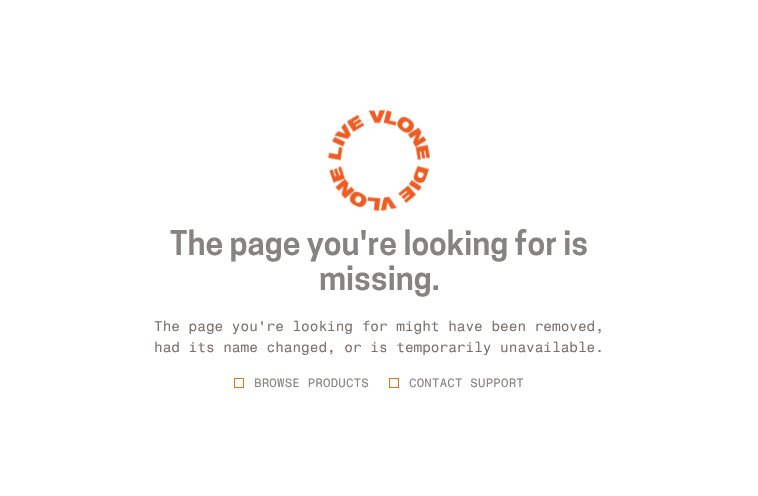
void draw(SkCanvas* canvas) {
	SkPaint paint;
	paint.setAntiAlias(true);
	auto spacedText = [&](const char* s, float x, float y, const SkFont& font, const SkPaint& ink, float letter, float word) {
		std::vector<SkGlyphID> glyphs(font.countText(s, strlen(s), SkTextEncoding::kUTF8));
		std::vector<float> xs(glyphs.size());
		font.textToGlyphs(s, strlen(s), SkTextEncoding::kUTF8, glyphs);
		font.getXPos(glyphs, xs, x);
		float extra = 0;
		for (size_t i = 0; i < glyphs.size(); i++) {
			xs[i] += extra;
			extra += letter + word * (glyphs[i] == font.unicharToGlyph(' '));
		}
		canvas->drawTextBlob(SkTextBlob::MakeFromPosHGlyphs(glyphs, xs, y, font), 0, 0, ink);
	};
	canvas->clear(0xffffffff);
	canvas->drawImageRect(SkImages::DeferredFromEncodedData(SkData::MakeFromFileName("img1.png")), SkRect::MakeXYWH(327, 110, 104, 102), SkSamplingOptions());
	SkFont f1(fontMgr->matchFamilyStyle("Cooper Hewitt", SkFontStyle(600, SkFontStyle::kNormal_Width, SkFontStyle::kUpright_Slant)), 32);
	f1.setSubpixel(true);
	paint.setColor(0xff87837f);
	canvas->drawString("The page you're looking for is", 170, 255, f1, paint);
	canvas->drawString("missing.", 319, 290, f1, paint);
	SkFont f2(fontMgr->matchFamilyStyle("Fragment Mono", SkFontStyle::Normal()), 14);
	f2.setSubpixel(true);
	paint.setColor(0xff79706c);
	canvas->drawString("The page you're looking for might have been removed,", 154, 331, f2, paint);
	canvas->drawString("had its name changed, or is temporarily unavailable.", 154, 352, f2, paint);
	paint.setStroke(true);
	paint.setStrokeWidth(1);
	paint.setColor(0xffd97717);
	canvas->drawRect(SkRect::MakeXYWH(234.5, 378.5, 9, 9), paint);
	SkFont f3(fontMgr->matchFamilyStyle("Fragment Mono", SkFontStyle::Normal()), 12);
	f3.setSubpixel(true);
	paint.setStroke(false);
	paint.setColor(0xff87837f);
	spacedText("BROWSE PRODUCTS", 254, 387, f3, paint, 0.25, 0);
	paint.setStroke(true);
	paint.setColor(0xffd97717);
	canvas->drawRect(SkRect::MakeXYWH(389.5, 378.5, 9, 9), paint);
	paint.setStroke(false);
	paint.setColor(0xff87837f);
	spacedText("CONTACT SUPPORT", 409, 387, f3, paint, 0.25, 0);
}
